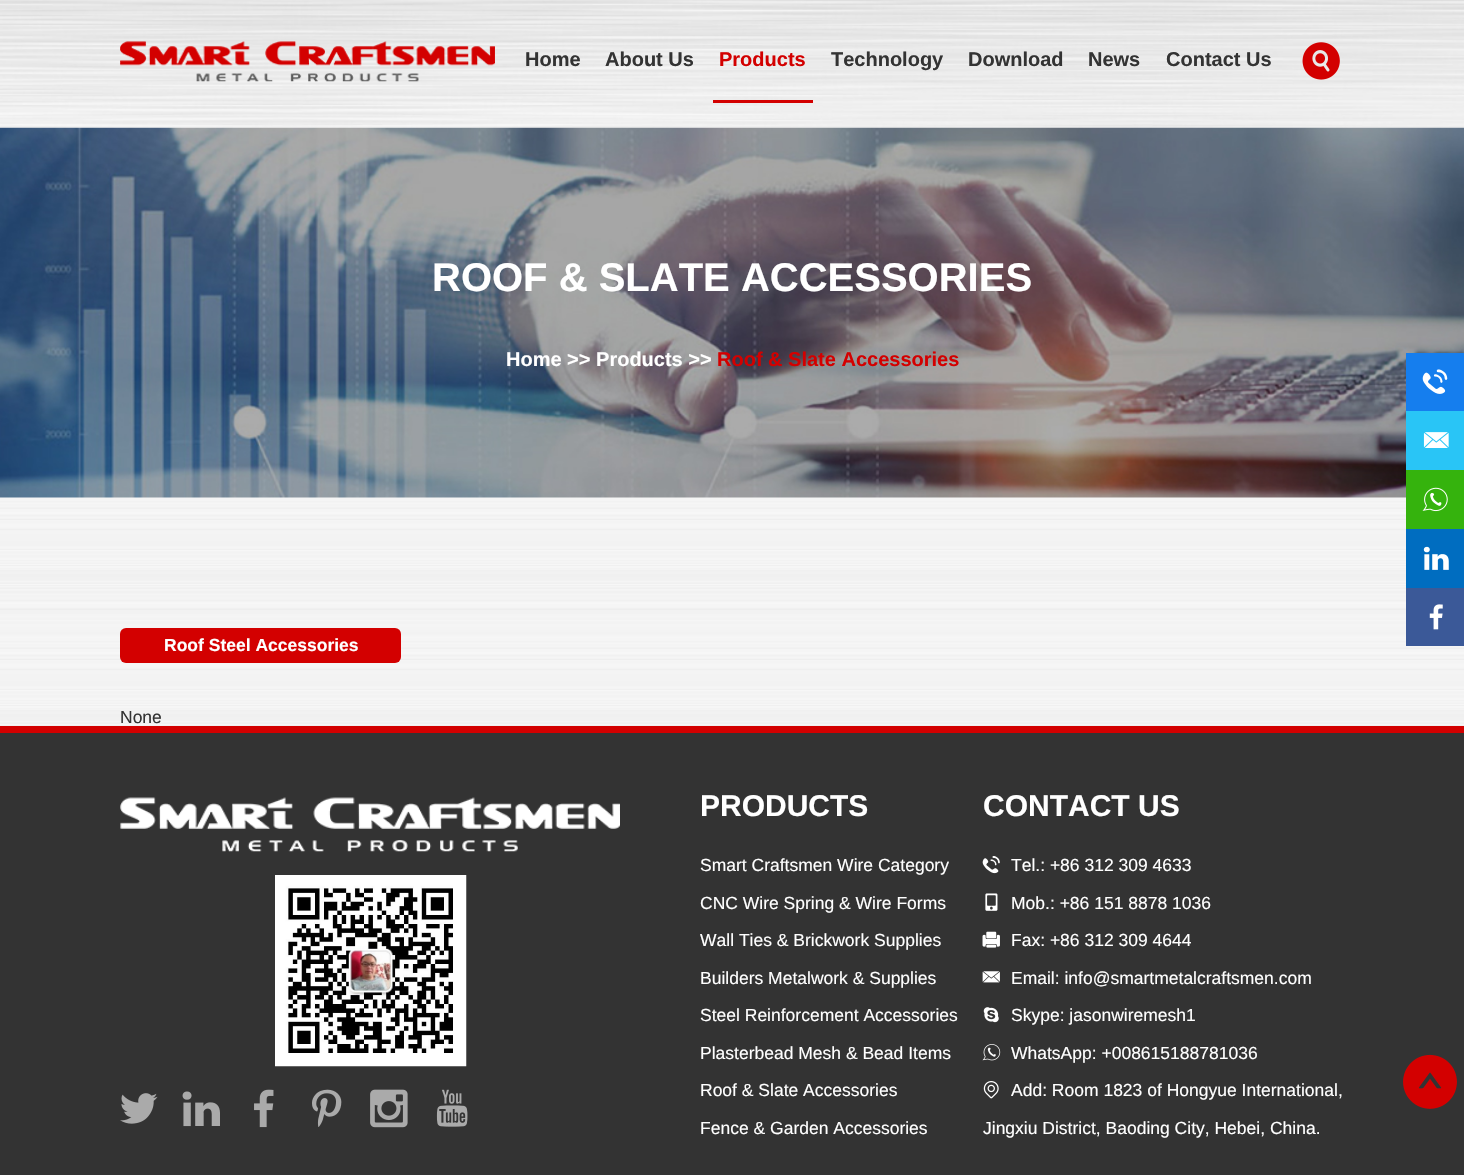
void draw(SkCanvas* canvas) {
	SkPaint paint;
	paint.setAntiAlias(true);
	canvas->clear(0xffffffff);
	canvas->drawImageRect(SkImages::DeferredFromEncodedData(SkData::MakeFromFileName("img1.png")), SkRect::MakeXYWH(0, 127, 1464, 599), SkSamplingOptions());
	canvas->drawImageRect(SkImages::DeferredFromEncodedData(SkData::MakeFromFileName("img5.png")), SkRect::MakeXYWH(0, 127, 1464, 371), SkSamplingOptions());
	canvas->drawImageRect(SkImages::DeferredFromEncodedData(SkData::MakeFromFileName("img2.png")), SkRect::MakeXYWH(0, 0, 1464, 128), SkSamplingOptions());
	canvas->drawImageRect(SkImages::DeferredFromEncodedData(SkData::MakeFromFileName("img3.png")), SkRect::MakeXYWH(120, 41, 375, 41), SkSamplingOptions());
	SkFont f1(fontMgr->matchFamilyStyle("Liberation Sans", SkFontStyle::Bold()), 20);
	f1.setSubpixel(true);
	paint.setColor(0xff333333);
	canvas->drawString("Home", 525, 66, f1, paint);
	canvas->drawString("About Us", 605, 66, f1, paint);
	paint.setColor(0xffd30000);
	canvas->drawRect(SkRect::MakeXYWH(713, 100, 100, 3), paint);
	canvas->drawString("Products", 719, 66, f1, paint);
	paint.setColor(0xff333333);
	canvas->drawString("Technology", 831, 66, f1, paint);
	canvas->drawString("Download", 968, 66, f1, paint);
	canvas->drawString("News", 1088, 66, f1, paint);
	canvas->drawString("Contact Us", 1166, 66, f1, paint);
	canvas->drawImageRect(SkImages::DeferredFromEncodedData(SkData::MakeFromFileName("img4.png")), SkRect::MakeXYWH(1302, 42, 38, 38), SkSamplingOptions());
	SkFont f2(fontMgr->matchFamilyStyle("Liberation Sans", SkFontStyle::Bold()), 40);
	f2.setSubpixel(true);
	paint.setColor(0xffffffff);
	canvas->drawString("ROOF & SLATE ACCESSORIES", 432, 291, f2, paint);
	canvas->drawString("Home >> Products >>", 506, 366, f1, paint);
	paint.setColor(0xffd30000);
	canvas->drawString("Roof & Slate Accessories", 717, 366, f1, paint);
	paint.setColor(0xff157eee);
	canvas->drawRect(SkRect::MakeXYWH(1406, 353, 58, 58), paint);
	canvas->drawImageRect(SkImages::DeferredFromEncodedData(SkData::MakeFromFileName("img6.png")), SkRect::MakeXYWH(1422, 369, 26, 25), SkSamplingOptions());
	paint.setColor(0xff29c5f6);
	canvas->drawRect(SkRect::MakeXYWH(1406, 411, 58, 59), paint);
	canvas->drawImageRect(SkImages::DeferredFromEncodedData(SkData::MakeFromFileName("img7.png")), SkRect::MakeXYWH(1423, 432, 26, 16), SkSamplingOptions());
	paint.setColor(0xff35b30d);
	canvas->drawRect(SkRect::MakeXYWH(1406, 470, 58, 59), paint);
	canvas->drawImageRect(SkImages::DeferredFromEncodedData(SkData::MakeFromFileName("img8.png")), SkRect::MakeXYWH(1422, 487, 26, 25), SkSamplingOptions());
	paint.setColor(0xff006dc0);
	canvas->drawRect(SkRect::MakeXYWH(1406, 529, 58, 59), paint);
	canvas->drawImageRect(SkImages::DeferredFromEncodedData(SkData::MakeFromFileName("img9.png")), SkRect::MakeXYWH(1423, 546, 26, 24), SkSamplingOptions());
	paint.setColor(0xff3b5998);
	canvas->drawRect(SkRect::MakeXYWH(1406, 588, 58, 58), paint);
	canvas->drawImageRect(SkImages::DeferredFromEncodedData(SkData::MakeFromFileName("img10.png")), SkRect::MakeXYWH(1429, 604, 14, 26), SkSamplingOptions());
	paint.setColor(0xffd30000);
	canvas->drawRoundRect(SkRect::MakeXYWH(120, 628, 281, 35), 6, 6, paint);
	SkFont f3(fontMgr->matchFamilyStyle("Liberation Sans", SkFontStyle::Bold()), 17.5);
	f3.setSubpixel(true);
	paint.setColor(0xffffffff);
	canvas->drawString("Roof Steel Accessories", 164, 651, f3, paint);
	SkFont f4(fontMgr->matchFamilyStyle("Liberation Sans", SkFontStyle::Normal()), 17.5);
	f4.setSubpixel(true);
	paint.setColor(0xff333333);
	canvas->drawString("None", 120, 723, f4, paint);
	canvas->drawRect(SkRect::MakeXYWH(0, 733, 1464, 442), paint);
	paint.setColor(0xffd30000);
	canvas->drawRect(SkRect::MakeXYWH(0, 726, 1464, 7), paint);
	canvas->drawImageRect(SkImages::DeferredFromEncodedData(SkData::MakeFromFileName("img11.png")), SkRect::MakeXYWH(120, 797, 500, 55), SkSamplingOptions());
	canvas->drawImageRect(SkImages::DeferredFromEncodedData(SkData::MakeFromFileName("img12.png")), SkRect::MakeXYWH(275, 875, 192, 192), SkSamplingOptions());
	canvas->drawImageRect(SkImages::DeferredFromEncodedData(SkData::MakeFromFileName("img13.png")), SkRect::MakeXYWH(120, 1093, 38, 31), SkSamplingOptions());
	canvas->drawImageRect(SkImages::DeferredFromEncodedData(SkData::MakeFromFileName("img14.png")), SkRect::MakeXYWH(182, 1091, 38, 36), SkSamplingOptions());
	canvas->drawImageRect(SkImages::DeferredFromEncodedData(SkData::MakeFromFileName("img15.png")), SkRect::MakeXYWH(254, 1089, 20, 39), SkSamplingOptions());
	canvas->drawImageRect(SkImages::DeferredFromEncodedData(SkData::MakeFromFileName("img16.png")), SkRect::MakeXYWH(312, 1089, 30, 38), SkSamplingOptions());
	canvas->drawImageRect(SkImages::DeferredFromEncodedData(SkData::MakeFromFileName("img17.png")), SkRect::MakeXYWH(370, 1089, 38, 39), SkSamplingOptions());
	canvas->drawImageRect(SkImages::DeferredFromEncodedData(SkData::MakeFromFileName("img18.png")), SkRect::MakeXYWH(436, 1089, 32, 38), SkSamplingOptions());
	SkFont f5(fontMgr->matchFamilyStyle("Liberation Sans", SkFontStyle::Bold()), 30);
	f5.setSubpixel(true);
	paint.setColor(0xffffffff);
	canvas->drawString("PRODUCTS", 700, 816, f5, paint);
	canvas->drawString("Smart Craftsmen Wire Category", 700, 871, f4, paint);
	canvas->drawString("CNC Wire Spring & Wire Forms", 700, 909, f4, paint);
	canvas->drawString("Wall Ties & Brickwork Supplies", 700, 946, f4, paint);
	canvas->drawString("Builders Metalwork & Supplies", 700, 984, f4, paint);
	canvas->drawString("Steel Reinforcement Accessories", 700, 1021, f4, paint);
	canvas->drawString("Plasterbead Mesh & Bead Items", 700, 1059, f4, paint);
	canvas->drawString("Roof & Slate Accessories", 700, 1096, f4, paint);
	canvas->drawString("Fence & Garden Accessories", 700, 1134, f4, paint);
	canvas->drawString("CONTACT US", 983, 816, f5, paint);
	canvas->drawImageRect(SkImages::DeferredFromEncodedData(SkData::MakeFromFileName("img19.png")), SkRect::MakeXYWH(982, 856, 18, 18), SkSamplingOptions());
	canvas->drawString("Tel.: +86 312 309 4633", 1011, 871, f4, paint);
	canvas->drawImageRect(SkImages::DeferredFromEncodedData(SkData::MakeFromFileName("img20.png")), SkRect::MakeXYWH(985, 893, 13, 18), SkSamplingOptions());
	canvas->drawString("Mob.: +86 151 8878 1036", 1011, 909, f4, paint);
	canvas->drawImageRect(SkImages::DeferredFromEncodedData(SkData::MakeFromFileName("img21.png")), SkRect::MakeXYWH(982, 931, 18, 17), SkSamplingOptions());
	canvas->drawString("Fax: +86 312 309 4644", 1011, 946, f4, paint);
	canvas->drawImageRect(SkImages::DeferredFromEncodedData(SkData::MakeFromFileName("img22.png")), SkRect::MakeXYWH(982, 971, 18, 12), SkSamplingOptions());
	canvas->drawString("Email: info@smartmetalcraftsmen.com", 1011, 984, f4, paint);
	canvas->drawImageRect(SkImages::DeferredFromEncodedData(SkData::MakeFromFileName("img23.png")), SkRect::MakeXYWH(983, 1007, 16, 16), SkSamplingOptions());
	canvas->drawString("Skype: jasonwiremesh1", 1011, 1021, f4, paint);
	canvas->drawImageRect(SkImages::DeferredFromEncodedData(SkData::MakeFromFileName("img24.png")), SkRect::MakeXYWH(982, 1044, 19, 17), SkSamplingOptions());
	canvas->drawString("WhatsApp: +008615188781036", 1011, 1059, f4, paint);
	canvas->drawImageRect(SkImages::DeferredFromEncodedData(SkData::MakeFromFileName("img25.png")), SkRect::MakeXYWH(983, 1081, 16, 18), SkSamplingOptions());
	canvas->drawString("Add: Room 1823 of Hongyue International,", 1011, 1096, f4, paint);
	canvas->drawString("Jingxiu District, Baoding City, Hebei, China.", 983, 1134, f4, paint);
	canvas->drawImageRect(SkImages::DeferredFromEncodedData(SkData::MakeFromFileName("img26.png")), SkRect::MakeXYWH(1403, 1054, 54, 55), SkSamplingOptions());
}
